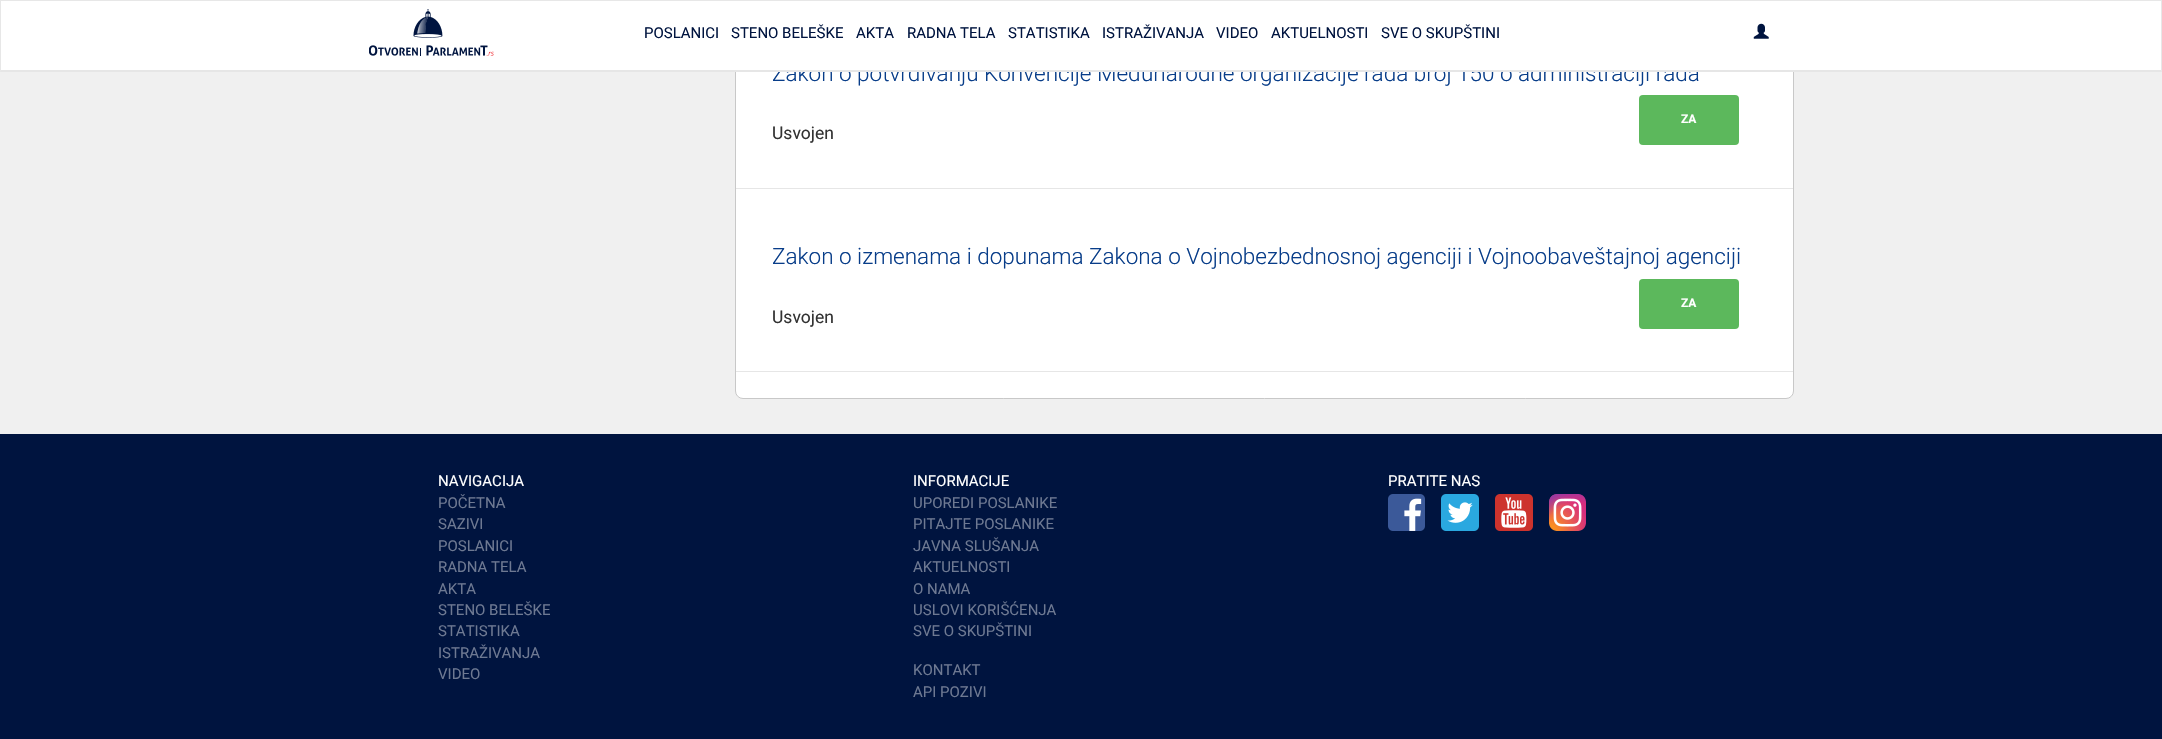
void draw(SkCanvas* canvas) {
	SkPaint paint;
	paint.setAntiAlias(true);
	auto svgPath = [&](const char* data, bool evenOdd = false) {
		SkPath result = *SkParsePath::FromSVGString(data);
		if (evenOdd) result.setFillType(SkPathFillType::kEvenOdd);
		return result;
	};
	canvas->clear(0xfff0f0f0);
	paint.setColor(0xffffffff);
	canvas->drawRoundRect(SkRect::MakeXYWH(735.5, -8.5, 1058, 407), 7.5, 7.5, paint);
	paint.setStroke(true);
	paint.setStrokeWidth(1);
	paint.setColor(0xffc8c8c8);
	canvas->drawRoundRect(SkRect::MakeXYWH(735.5, -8.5, 1058, 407), 7.5, 7.5, paint);
	SkFont f1(fontMgr->matchFamilyStyle("Roboto", SkFontStyle(300, SkFontStyle::kNormal_Width, SkFontStyle::kUpright_Slant)), 22.5);
	f1.setSubpixel(true);
	paint.setStroke(false);
	paint.setColor(0xff083d89);
	canvas->drawString("Zakon o potvrđivanju Konvencije Međunarodne organizacije rada broj 150 o administraciji rada", 772, 81, f1, paint);
	paint.setColor(0xffffffff);
	canvas->drawRect(SkRect::MakeXYWH(1, 1, 2160, 69), paint);
	paint.setColor(0xffe7e7e7);
	canvas->drawRect(SkRect::MakeXYWH(0, 0, 2162, 1), paint);
	canvas->drawPath(svgPath("M2162 0V72L2161 70V1Z"), paint);
	paint.setColor(0xffe6e6e6);
	canvas->drawPath(svgPath("M2162 72H0L1 70H2161Z"), paint);
	paint.setColor(0xffe7e7e7);
	canvas->drawPath(svgPath("M0 72V0L1 1V70Z"), paint);
	canvas->drawImageRect(SkImages::DeferredFromEncodedData(SkData::MakeFromFileName("img1.png")), SkRect::MakeXYWH(369, 9, 125, 47), SkSamplingOptions());
	SkFont f2(fontMgr->matchFamilyStyle("Roboto", SkFontStyle::Normal()), 15);
	f2.setSubpixel(true);
	paint.setColor(0xff00143f);
	canvas->drawString("POSLANICI", 644, 38, f2, paint);
	canvas->drawString("STENO BELEŠKE", 731, 38, f2, paint);
	canvas->drawString("AKTA", 856, 38, f2, paint);
	canvas->drawString("RADNA TELA", 907, 38, f2, paint);
	canvas->drawString("STATISTIKA", 1008, 38, f2, paint);
	canvas->drawString("ISTRAŽIVANJA", 1102, 38, f2, paint);
	canvas->drawString("VIDEO", 1216, 38, f2, paint);
	canvas->drawString("AKTUELNOSTI", 1271, 38, f2, paint);
	canvas->drawString("SVE O SKUPŠTINI", 1381, 38, f2, paint);
	canvas->drawImageRect(SkImages::DeferredFromEncodedData(SkData::MakeFromFileName("img2.png")), SkRect::MakeXYWH(1753, 23, 16, 16), SkSamplingOptions());
	paint.setColor(0xff5cb85c);
	canvas->drawRoundRect(SkRect::MakeXYWH(1639, 95, 100, 50), 4, 4, paint);
	SkFont f3(fontMgr->matchFamilyStyle("Roboto", SkFontStyle::Bold()), 12);
	f3.setSubpixel(true);
	paint.setColor(0xffffffff);
	canvas->drawString("ZA", 1681, 123, f3, paint);
	SkFont f4(fontMgr->matchFamilyStyle("Roboto", SkFontStyle::Normal()), 17.5);
	f4.setSubpixel(true);
	paint.setColor(0xff333333);
	canvas->drawString("Usvojen", 772, 139, f4, paint);
	paint.setColor(0xffe6e6e6);
	canvas->drawRect(SkRect::MakeXYWH(736, 188, 1057, 1), paint);
	paint.setColor(0xff083d89);
	canvas->drawString("Zakon o izmenama i dopunama Zakona o Vojnobezbednosnoj agenciji i Vojnoobaveštajnoj agenciji", 772, 264, f1, paint);
	paint.setColor(0xff5cb85c);
	canvas->drawRoundRect(SkRect::MakeXYWH(1639, 279, 100, 50), 4, 4, paint);
	paint.setColor(0xffffffff);
	canvas->drawString("ZA", 1681, 307, f3, paint);
	paint.setColor(0xff333333);
	canvas->drawString("Usvojen", 772, 323, f4, paint);
	paint.setColor(0xffe6e6e6);
	canvas->drawRect(SkRect::MakeXYWH(736, 371, 1057, 1), paint);
	paint.setColor(0xff00143f);
	canvas->drawRect(SkRect::MakeXYWH(0, 434, 2162, 305), paint);
	paint.setColor(0xffffffff);
	canvas->drawString("NAVIGACIJA", 438, 486, f2, paint);
	paint.setColor(0xff6e7992);
	canvas->drawString("POČETNA", 438, 508, f2, paint);
	canvas->drawString("SAZIVI", 438, 529, f2, paint);
	canvas->drawString("POSLANICI", 438, 551, f2, paint);
	canvas->drawString("RADNA TELA", 438, 572, f2, paint);
	canvas->drawString("AKTA", 438, 594, f2, paint);
	canvas->drawString("STENO BELEŠKE", 438, 615, f2, paint);
	canvas->drawString("STATISTIKA", 438, 636, f2, paint);
	canvas->drawString("ISTRAŽIVANJA", 438, 658, f2, paint);
	canvas->drawString("VIDEO", 438, 679, f2, paint);
	paint.setColor(0xffffffff);
	canvas->drawString("INFORMACIJE", 913, 486, f2, paint);
	paint.setColor(0xff6e7992);
	canvas->drawString("UPOREDI POSLANIKE", 913, 508, f2, paint);
	canvas->drawString("PITAJTE POSLANIKE", 913, 529, f2, paint);
	canvas->drawString("JAVNA SLUŠANJA", 913, 551, f2, paint);
	canvas->drawString("AKTUELNOSTI", 913, 572, f2, paint);
	canvas->drawString("O NAMA", 913, 594, f2, paint);
	canvas->drawString("USLOVI KORIŠĆENJA", 913, 615, f2, paint);
	canvas->drawString("SVE O SKUPŠTINI", 913, 636, f2, paint);
	canvas->drawString("KONTAKT", 913, 675, f2, paint);
	canvas->drawString("API POZIVI", 913, 697, f2, paint);
	paint.setColor(0xffffffff);
	canvas->drawString("PRATITE NAS", 1388, 486, f2, paint);
	canvas->drawImageRect(SkImages::DeferredFromEncodedData(SkData::MakeFromFileName("img3.png")), SkRect::MakeXYWH(1388, 494, 37, 37), SkSamplingOptions());
	canvas->drawImageRect(SkImages::DeferredFromEncodedData(SkData::MakeFromFileName("img4.png")), SkRect::MakeXYWH(1441, 494, 38, 37), SkSamplingOptions());
	canvas->drawImageRect(SkImages::DeferredFromEncodedData(SkData::MakeFromFileName("img5.png")), SkRect::MakeXYWH(1495, 494, 38, 37), SkSamplingOptions());
	canvas->drawImageRect(SkImages::DeferredFromEncodedData(SkData::MakeFromFileName("img6.png")), SkRect::MakeXYWH(1549, 494, 37, 37), SkSamplingOptions());
}
